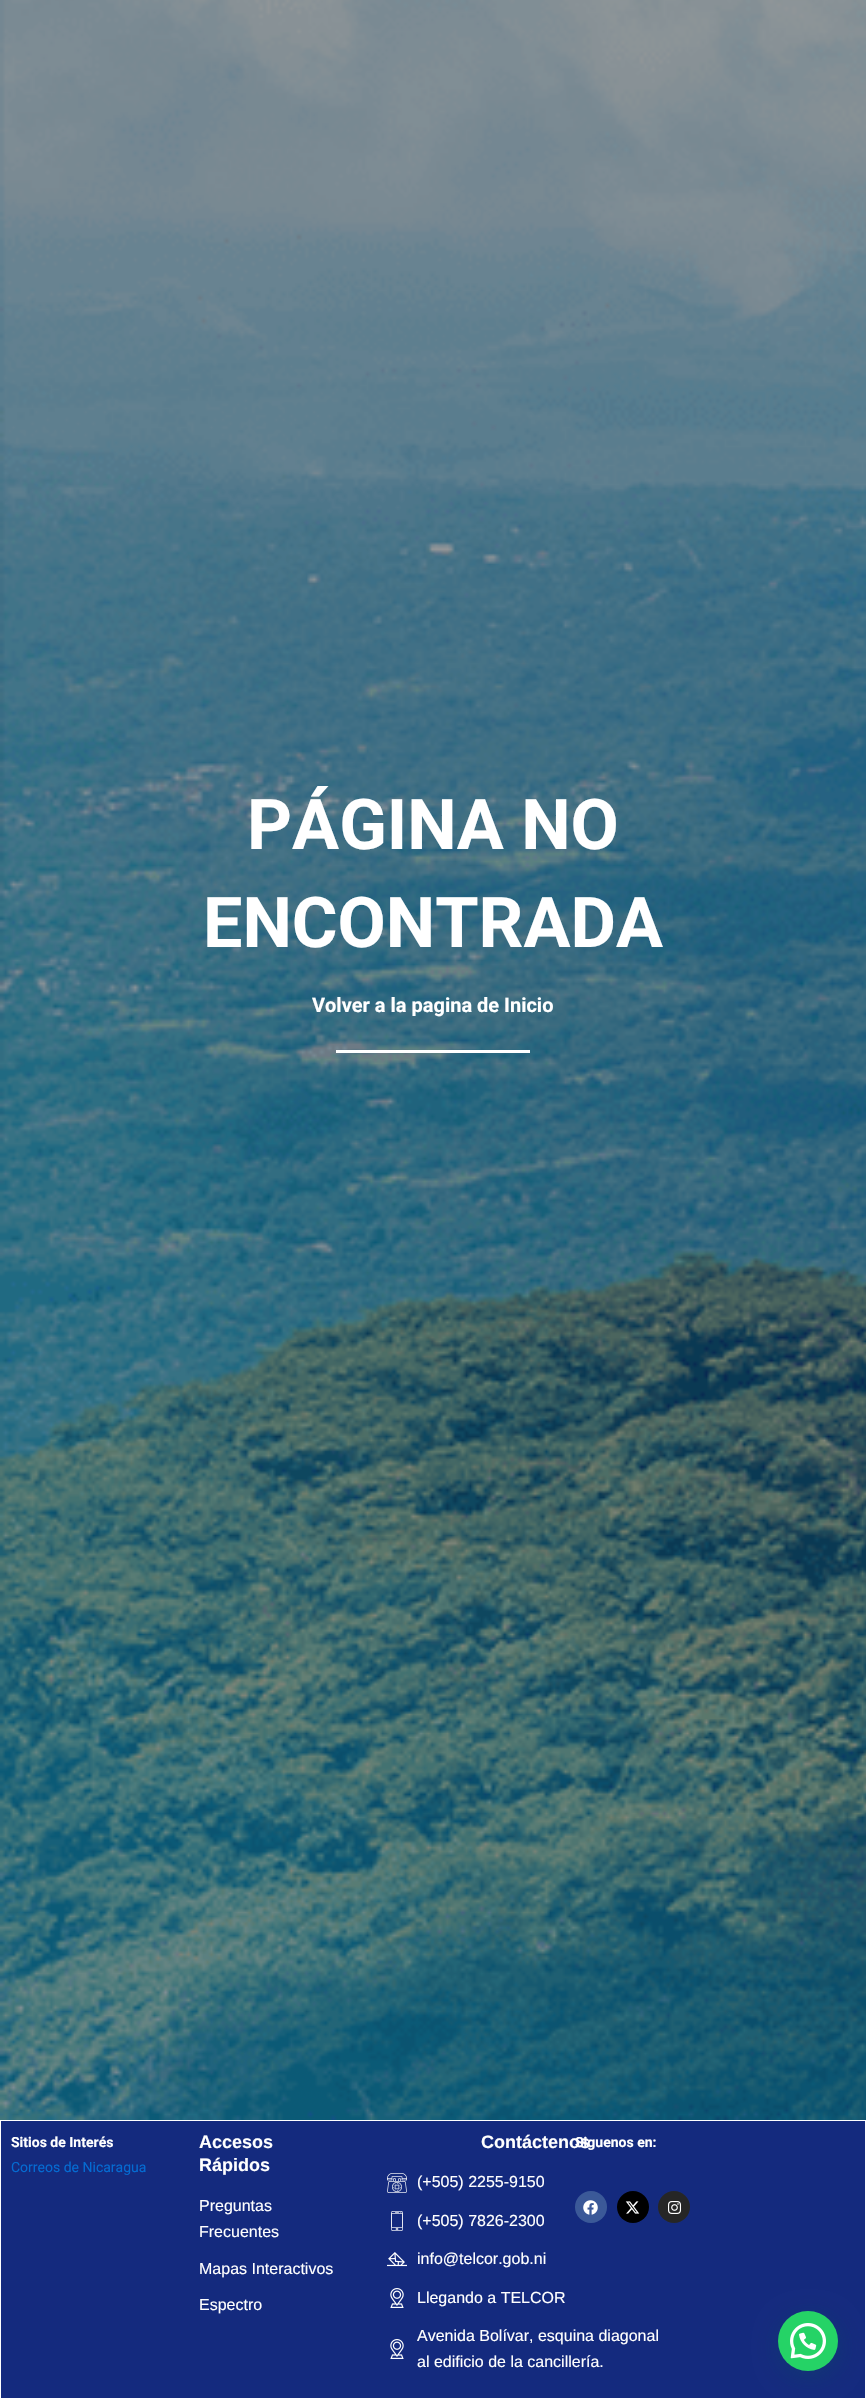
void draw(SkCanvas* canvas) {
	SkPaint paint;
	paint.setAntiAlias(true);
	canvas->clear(0xffffffff);
	canvas->drawImageRect(SkImages::DeferredFromEncodedData(SkData::MakeFromFileName("img1.png")), SkRect::MakeXYWH(0, 0, 866, 2120), SkSamplingOptions());
	SkFont f1(fontMgr->matchFamilyStyle("Roboto", SkFontStyle::Bold()), 70);
	f1.setSubpixel(true);
	paint.setColor(0xffffffff);
	canvas->drawString("PÁGINA NO", 247, 849, f1, paint);
	canvas->drawString("ENCONTRADA", 203, 947, f1, paint);
	SkFont f2(fontMgr->matchFamilyStyle("Roboto", SkFontStyle::Bold()), 20);
	f2.setSubpixel(true);
	canvas->drawString("Volver a la pagina de Inicio", 312, 1012, f2, paint);
	canvas->drawRect(SkRect::MakeXYWH(336, 1050, 194, 3), paint);
	paint.setColor(0xff142a7e);
	canvas->drawRect(SkRect::MakeXYWH(1, 2121, 864, 277), paint);
	SkFont f3(fontMgr->matchFamilyStyle("Roboto", SkFontStyle::Bold()), 14);
	f3.setSubpixel(true);
	paint.setColor(0xffffffff);
	canvas->drawString("Sitios de Interés", 11, 2147, f3, paint);
	SkFont f4(fontMgr->matchFamilyStyle("Roboto", SkFontStyle::Normal()), 14);
	f4.setSubpixel(true);
	paint.setColor(0xff046bd2);
	canvas->drawString("Correos de Nicaragua", 11, 2172, f4, paint);
	SkFont f5(fontMgr->matchFamilyStyle("Liberation Sans", SkFontStyle::Bold()), 18);
	f5.setSubpixel(true);
	paint.setColor(0xffffffff);
	canvas->drawString("Accesos", 199, 2148, f5, paint);
	canvas->drawString("Rápidos", 199, 2171, f5, paint);
	SkFont f6(fontMgr->matchFamilyStyle("Liberation Sans", SkFontStyle::Normal()), 16);
	f6.setSubpixel(true);
	canvas->drawString("Preguntas", 199, 2211, f6, paint);
	canvas->drawString("Frecuentes", 199, 2237, f6, paint);
	canvas->drawString("Mapas Interactivos", 199, 2274, f6, paint);
	canvas->drawString("Espectro", 199, 2310, f6, paint);
	canvas->drawString("Contáctenos", 481, 2148, f5, paint);
	canvas->drawImageRect(SkImages::DeferredFromEncodedData(SkData::MakeFromFileName("img2.png")), SkRect::MakeXYWH(387, 2173, 20, 20), SkSamplingOptions());
	canvas->drawString("(+505) 2255-9150", 417, 2187, f6, paint);
	canvas->drawImageRect(SkImages::DeferredFromEncodedData(SkData::MakeFromFileName("img3.png")), SkRect::MakeXYWH(391, 2211, 12, 20), SkSamplingOptions());
	canvas->drawString("(+505) 7826-2300", 417, 2226, f6, paint);
	canvas->drawImageRect(SkImages::DeferredFromEncodedData(SkData::MakeFromFileName("img4.png")), SkRect::MakeXYWH(387, 2252, 20, 15), SkSamplingOptions());
	canvas->drawString("info@telcor.gob.ni", 417, 2264, f6, paint);
	canvas->drawImageRect(SkImages::DeferredFromEncodedData(SkData::MakeFromFileName("img5.png")), SkRect::MakeXYWH(390, 2288, 14, 20), SkSamplingOptions());
	canvas->drawString("Llegando a TELCOR", 417, 2303, f6, paint);
	canvas->drawImageRect(SkImages::DeferredFromEncodedData(SkData::MakeFromFileName("img5.png")), SkRect::MakeXYWH(390, 2339, 14, 20), SkSamplingOptions());
	canvas->drawString("Avenida Bolívar, esquina diagonal", 417, 2341, f6, paint);
	canvas->drawString("al edificio de la cancillería.", 417, 2367, f6, paint);
	canvas->drawString("Siguenos en:", 575, 2147, f3, paint);
	paint.setColor(0xff3b5998);
	canvas->drawCircle(591, 2207, 16, paint);
	canvas->drawImageRect(SkImages::DeferredFromEncodedData(SkData::MakeFromFileName("img6.png")), SkRect::MakeXYWH(583, 2200, 15, 15), SkSamplingOptions());
	paint.setColor(0xff000000);
	canvas->drawCircle(633, 2207, 16, paint);
	canvas->drawImageRect(SkImages::DeferredFromEncodedData(SkData::MakeFromFileName("img7.png")), SkRect::MakeXYWH(625, 2201, 15, 13), SkSamplingOptions());
	paint.setColor(0xff262626);
	canvas->drawCircle(674, 2207, 16, paint);
	canvas->drawImageRect(SkImages::DeferredFromEncodedData(SkData::MakeFromFileName("img8.png")), SkRect::MakeXYWH(668, 2201, 14, 13), SkSamplingOptions());
	paint.setColor(0x3d075e54);
	paint.setMaskFilter(SkMaskFilter::MakeBlur(kNormal_SkBlurStyle, 12));
	canvas->drawRoundRect(SkRect::MakeXYWH(779, 2317, 60, 60), 30, 30, paint);
	paint.setMaskFilter(nullptr);
	paint.setColor(0xff25d366);
	canvas->drawCircle(808, 2341, 30, paint);
	canvas->drawImageRect(SkImages::DeferredFromEncodedData(SkData::MakeFromFileName("img9.png")), SkRect::MakeXYWH(790, 2323, 36, 36), SkSamplingOptions());
}
